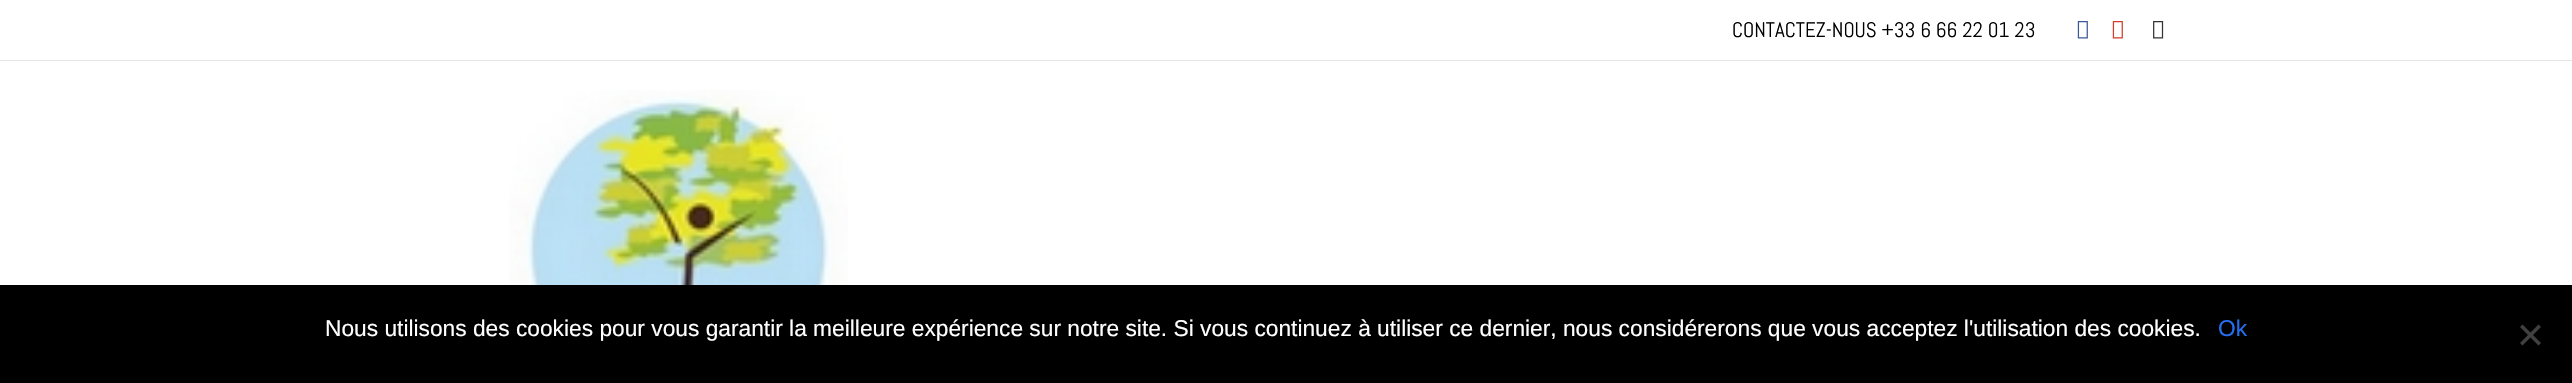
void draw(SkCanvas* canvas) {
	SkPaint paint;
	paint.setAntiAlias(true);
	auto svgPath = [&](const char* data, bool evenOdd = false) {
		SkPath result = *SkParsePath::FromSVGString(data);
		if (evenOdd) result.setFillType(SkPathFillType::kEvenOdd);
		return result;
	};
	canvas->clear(0xffffffff);
	paint.setColor(0xffe6e6e6);
	canvas->drawRect(SkRect::MakeXYWH(0, 60, 2572, 1), paint);
	SkFont f1(fontMgr->matchFamilyStyle("Abel", SkFontStyle::Normal()), 21);
	f1.setSubpixel(true);
	paint.setColor(0xff000000);
	canvas->drawString("CONTACTEZ-NOUS +33 6 66 22 01 23", 1732, 37, f1, paint);
	canvas->drawImageRect(SkImages::DeferredFromEncodedData(SkData::MakeFromFileName("img1.png")), SkRect::MakeXYWH(2077, 21, 11, 18), SkSamplingOptions());
	canvas->drawImageRect(SkImages::DeferredFromEncodedData(SkData::MakeFromFileName("img2.png")), SkRect::MakeXYWH(2112, 21, 11, 18), SkSamplingOptions());
	canvas->drawImageRect(SkImages::DeferredFromEncodedData(SkData::MakeFromFileName("img3.png")), SkRect::MakeXYWH(2153, 21, 11, 18), SkSamplingOptions());
	canvas->drawImageRect(SkImages::DeferredFromEncodedData(SkData::MakeFromFileName("img4.png")), SkRect::MakeXYWH(509, 90, 339, 195), SkSamplingOptions());
	canvas->drawRect(SkRect::MakeXYWH(0, 285, 2572, 98), paint);
	SkFont f2(fontMgr->matchFamilyStyle("Liberation Sans", SkFontStyle::Normal()), 22.75);
	f2.setSubpixel(true);
	paint.setColor(0xffffffff);
	canvas->drawString("Nous utilisons des cookies pour vous garantir la meilleure expérience sur notre site. Si vous continuez à utiliser ce dernier, nous considérerons que vous acceptez l'utilisation des cookies.", 325, 336, f2, paint);
	paint.setColor(0xff256eed);
	canvas->drawString("Ok", 2218, 336, f2, paint);
	paint.setColor(0xff404040);
	canvas->drawPath(svgPath("M2538.5 324.5L2541 327L2522.5 345.5L2520 343Z"), paint);
	canvas->drawPath(svgPath("M2520 327L2522.5 324.5L2541 343L2538.5 345.5Z"), paint);
}
